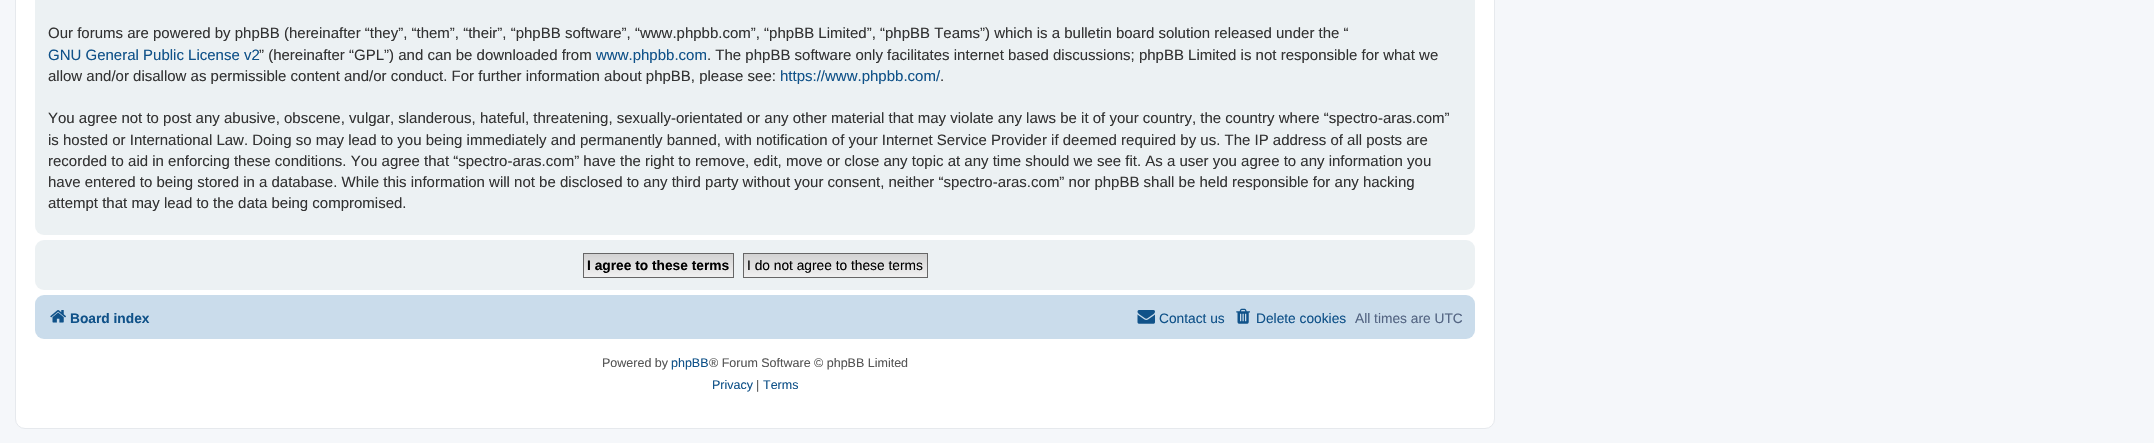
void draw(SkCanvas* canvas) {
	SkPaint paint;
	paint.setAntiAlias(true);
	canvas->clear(0xfff5f7fa);
	paint.setColor(0xffffffff);
	canvas->drawRoundRect(SkRect::MakeXYWH(15.5, -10.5, 1479, 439), 9.5, 9.5, paint);
	paint.setStroke(true);
	paint.setStrokeWidth(1);
	paint.setColor(0xffe6e9ed);
	canvas->drawRoundRect(SkRect::MakeXYWH(15.5, -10.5, 1479, 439), 9.5, 9.5, paint);
	paint.setStroke(false);
	paint.setColor(0xffecf1f3);
	canvas->drawRoundRect(SkRect::MakeXYWH(35, -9, 1440, 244), 9, 9, paint);
	SkFont f1(fontMgr->matchFamilyStyle("Liberation Sans", SkFontStyle::Normal()), 15);
	f1.setSubpixel(true);
	paint.setColor(0xff333333);
	canvas->drawString("Our forums are powered by phpBB (hereinafter “they”, “them”, “their”, “phpBB software”, “www.phpbb.com”, “phpBB Limited”, “phpBB Teams”) which is a bulletin board solution released under the “", 48, 38, f1, paint);
	paint.setColor(0xff105289);
	canvas->drawString("GNU General Public License v2", 48, 60, f1, paint);
	paint.setColor(0xff333333);
	canvas->drawString("” (hereinafter “GPL”) and can be downloaded from", 259, 60, f1, paint);
	paint.setColor(0xff105289);
	canvas->drawString("www.phpbb.com", 596, 60, f1, paint);
	paint.setColor(0xff333333);
	canvas->drawString(". The phpBB software only facilitates internet based discussions; phpBB Limited is not responsible for what we", 707, 60, f1, paint);
	canvas->drawString("allow and/or disallow as permissible content and/or conduct. For further information about phpBB, please see:", 48, 81, f1, paint);
	paint.setColor(0xff105289);
	canvas->drawString("https://www.phpbb.com/", 780, 81, f1, paint);
	paint.setColor(0xff333333);
	canvas->drawString(".", 940, 81, f1, paint);
	canvas->drawString("You agree not to post any abusive, obscene, vulgar, slanderous, hateful, threatening, sexually-orientated or any other material that may violate any laws be it of your country, the country where “spectro-aras.com”", 48, 123, f1, paint);
	canvas->drawString("is hosted or International Law. Doing so may lead to you being immediately and permanently banned, with notification of your Internet Service Provider if deemed required by us. The IP address of all posts are", 48, 145, f1, paint);
	canvas->drawString("recorded to aid in enforcing these conditions. You agree that “spectro-aras.com” have the right to remove, edit, move or close any topic at any time should we see fit. As a user you agree to any information you", 48, 166, f1, paint);
	canvas->drawString("have entered to being stored in a database. While this information will not be disclosed to any third party without your consent, neither “spectro-aras.com” nor phpBB shall be held responsible for any hacking", 48, 187, f1, paint);
	canvas->drawString("attempt that may lead to the data being compromised.", 48, 208, f1, paint);
	paint.setColor(0xffecf1f3);
	canvas->drawRoundRect(SkRect::MakeXYWH(35, 240, 1440, 50), 9, 9, paint);
	paint.setColor(0xffefefef);
	canvas->drawRect(SkRect::MakeXYWH(584, 276, 149, 1), paint);
	{
		const SkColor colors[] = {0xffd2d2d2, 0xffefefef};
		const float stops[] = {0, 1};
		const SkPoint ends[] = {{658, 254}, {658, 276}};
		paint.setShader(SkGradientShader::MakeLinear(ends, colors, stops, 2, SkTileMode::kClamp));
		paint.setAlpha(255);
	}
	canvas->drawRect(SkRect::MakeXYWH(584, 254, 149, 22), paint);
	paint.setStroke(true);
	paint.setShader(nullptr);
	paint.setColor(0xff666666);
	canvas->drawRect(SkRect::MakeXYWH(583.5, 253.5, 150, 24), paint);
	SkFont f2(fontMgr->matchFamilyStyle("Liberation Sans", SkFontStyle::Bold()), 13.75);
	f2.setSubpixel(true);
	paint.setStroke(false);
	paint.setColor(0xff000000);
	canvas->drawString("I agree to these terms", 587, 270, f2, paint);
	paint.setColor(0xffefefef);
	canvas->drawRect(SkRect::MakeXYWH(744, 276, 183, 1), paint);
	{
		const SkColor colors[] = {0xffd2d2d2, 0xffefefef};
		const float stops[] = {0, 1};
		const SkPoint ends[] = {{835, 254}, {835, 276}};
		paint.setShader(SkGradientShader::MakeLinear(ends, colors, stops, 2, SkTileMode::kClamp));
		paint.setAlpha(255);
	}
	canvas->drawRect(SkRect::MakeXYWH(744, 254, 183, 22), paint);
	paint.setStroke(true);
	paint.setShader(nullptr);
	paint.setColor(0xff666666);
	canvas->drawRect(SkRect::MakeXYWH(743.5, 253.5, 184, 24), paint);
	SkFont f3(fontMgr->matchFamilyStyle("Liberation Sans", SkFontStyle::Normal()), 13.75);
	f3.setSubpixel(true);
	paint.setStroke(false);
	paint.setColor(0xff000000);
	canvas->drawString("I do not agree to these terms", 747, 270, f3, paint);
	paint.setColor(0xffcadceb);
	canvas->drawRoundRect(SkRect::MakeXYWH(35, 295, 1440, 44), 9, 9, paint);
	canvas->drawImageRect(SkImages::DeferredFromEncodedData(SkData::MakeFromFileName("img1.png")), SkRect::MakeXYWH(50, 310, 16, 13), SkSamplingOptions());
	paint.setColor(0xff105289);
	canvas->drawString("Board index", 70, 323, f2, paint);
	canvas->drawImageRect(SkImages::DeferredFromEncodedData(SkData::MakeFromFileName("img2.png")), SkRect::MakeXYWH(1137, 310, 18, 14), SkSamplingOptions());
	canvas->drawString("Contact us", 1159, 323, f3, paint);
	canvas->drawImageRect(SkImages::DeferredFromEncodedData(SkData::MakeFromFileName("img3.png")), SkRect::MakeXYWH(1236, 308, 14, 16), SkSamplingOptions());
	canvas->drawString("Delete cookies", 1256, 323, f3, paint);
	paint.setColor(0xff536482);
	canvas->drawString("All times are UTC", 1355, 323, f3, paint);
	SkFont f4(fontMgr->matchFamilyStyle("Liberation Sans", SkFontStyle::Normal()), 12.5);
	f4.setSubpixel(true);
	paint.setColor(0xff555555);
	canvas->drawString("Powered by", 602, 367, f4, paint);
	paint.setColor(0xff105289);
	canvas->drawString("phpBB", 671, 367, f4, paint);
	paint.setColor(0xff555555);
	canvas->drawString("® Forum Software © phpBB Limited", 709, 367, f4, paint);
	paint.setColor(0xff105289);
	canvas->drawString("Privacy", 712, 389, f4, paint);
	paint.setColor(0xff555555);
	canvas->drawString("|", 756, 389, f4, paint);
	paint.setColor(0xff105289);
	canvas->drawString("Terms", 763, 389, f4, paint);
}
